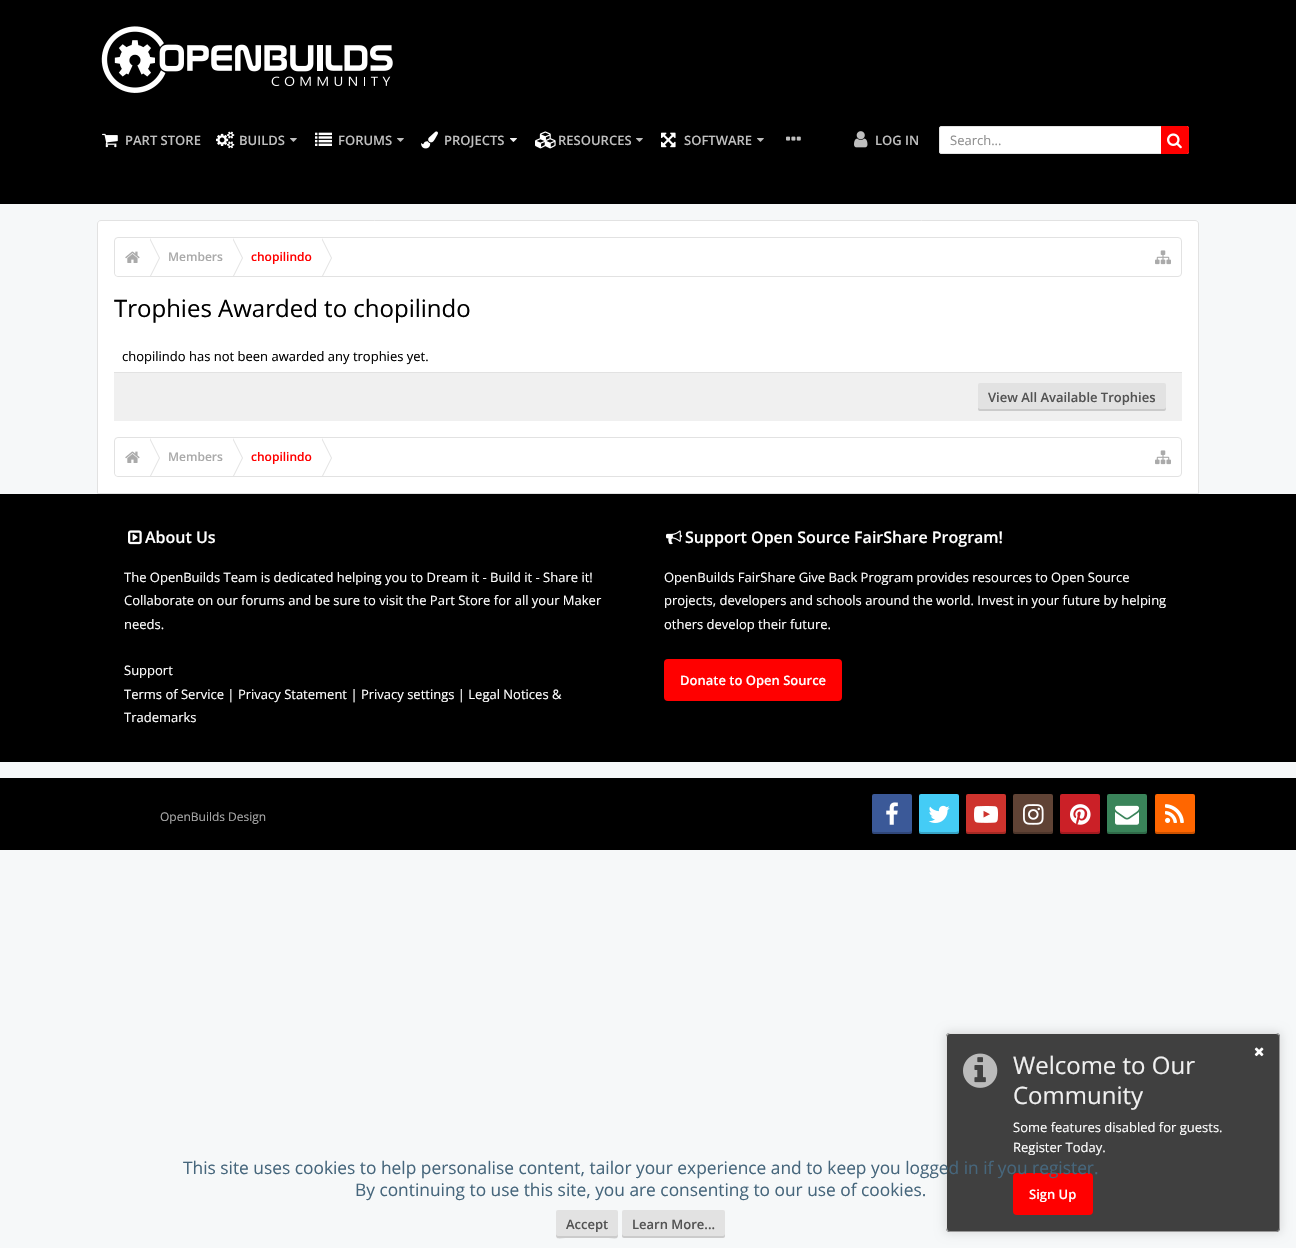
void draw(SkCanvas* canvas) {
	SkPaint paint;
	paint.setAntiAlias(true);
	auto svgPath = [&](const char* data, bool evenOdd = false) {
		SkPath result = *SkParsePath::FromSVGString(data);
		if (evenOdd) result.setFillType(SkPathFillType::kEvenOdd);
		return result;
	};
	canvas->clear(0xfff6f8f9);
	paint.setColor(0xff000000);
	canvas->drawRect(SkRect::MakeXYWH(0, 0, 1296, 204), paint);
	canvas->drawImageRect(SkImages::DeferredFromEncodedData(SkData::MakeFromFileName("img1.png")), SkRect::MakeXYWH(101, 26, 292, 67), SkSamplingOptions());
	canvas->drawImageRect(SkImages::DeferredFromEncodedData(SkData::MakeFromFileName("img2.png")), SkRect::MakeXYWH(102, 133, 16, 15), SkSamplingOptions());
	SkFont f1(fontMgr->matchFamilyStyle("Open Sans", SkFontStyle(600, SkFontStyle::kNormal_Width, SkFontStyle::kUpright_Slant)), 13);
	f1.setSubpixel(true);
	paint.setColor(0xffbfbfbf);
	canvas->drawString("PART STORE", 125, 145, f1, paint);
	canvas->drawImageRect(SkImages::DeferredFromEncodedData(SkData::MakeFromFileName("img3.png")), SkRect::MakeXYWH(216, 131, 19, 18), SkSamplingOptions());
	canvas->drawString("BUILDS", 239, 145, f1, paint);
	canvas->drawImageRect(SkImages::DeferredFromEncodedData(SkData::MakeFromFileName("img4.png")), SkRect::MakeXYWH(290, 138, 7, 4), SkSamplingOptions());
	canvas->drawImageRect(SkImages::DeferredFromEncodedData(SkData::MakeFromFileName("img5.png")), SkRect::MakeXYWH(315, 132, 17, 14), SkSamplingOptions());
	canvas->drawString("FORUMS", 338, 145, f1, paint);
	canvas->drawImageRect(SkImages::DeferredFromEncodedData(SkData::MakeFromFileName("img4.png")), SkRect::MakeXYWH(397, 138, 7, 4), SkSamplingOptions());
	canvas->drawImageRect(SkImages::DeferredFromEncodedData(SkData::MakeFromFileName("img6.png")), SkRect::MakeXYWH(421, 131, 17, 18), SkSamplingOptions());
	canvas->drawString("PROJECTS", 444, 145, f1, paint);
	canvas->drawImageRect(SkImages::DeferredFromEncodedData(SkData::MakeFromFileName("img4.png")), SkRect::MakeXYWH(510, 138, 7, 4), SkSamplingOptions());
	canvas->drawImageRect(SkImages::DeferredFromEncodedData(SkData::MakeFromFileName("img7.png")), SkRect::MakeXYWH(510, 138, 7, 4), SkSamplingOptions());
	canvas->drawImageRect(SkImages::DeferredFromEncodedData(SkData::MakeFromFileName("img8.png")), SkRect::MakeXYWH(535, 131, 21, 18), SkSamplingOptions());
	canvas->drawString("RESOURCES", 558, 145, f1, paint);
	canvas->drawImageRect(SkImages::DeferredFromEncodedData(SkData::MakeFromFileName("img4.png")), SkRect::MakeXYWH(636, 138, 7, 4), SkSamplingOptions());
	canvas->drawImageRect(SkImages::DeferredFromEncodedData(SkData::MakeFromFileName("img9.png")), SkRect::MakeXYWH(661, 132, 15, 16), SkSamplingOptions());
	canvas->drawString("SOFTWARE", 684, 145, f1, paint);
	canvas->drawImageRect(SkImages::DeferredFromEncodedData(SkData::MakeFromFileName("img4.png")), SkRect::MakeXYWH(757, 138, 7, 4), SkSamplingOptions());
	canvas->drawImageRect(SkImages::DeferredFromEncodedData(SkData::MakeFromFileName("img10.png")), SkRect::MakeXYWH(786, 136, 15, 5), SkSamplingOptions());
	canvas->drawImageRect(SkImages::DeferredFromEncodedData(SkData::MakeFromFileName("img11.png")), SkRect::MakeXYWH(854, 131, 14, 17), SkSamplingOptions());
	canvas->drawString("LOG IN", 875, 145, f1, paint);
	paint.setColor(0xffffffff);
	canvas->drawRoundRect(SkRect::MakeXYWH(939.5, 126.5, 249, 27), 1.5, 1.5, paint);
	paint.setStroke(true);
	paint.setStrokeWidth(1);
	paint.setColor(0xffe2e2e2);
	canvas->drawRoundRect(SkRect::MakeXYWH(939.5, 126.5, 249, 27), 1.5, 1.5, paint);
	SkFont f2(fontMgr->matchFamilyStyle("Open Sans", SkFontStyle::Normal()), 13);
	f2.setSubpixel(true);
	paint.setStroke(false);
	paint.setColor(0xff909090);
	canvas->drawString("Search...", 950, 145, f2, paint);
	paint.setColor(0xffff0000);
	canvas->drawPath(svgPath("M1161 126H1187C1188 126 1189 127 1189 128V152C1189 153 1188 154 1187 154H1161Z"), paint);
	canvas->drawImageRect(SkImages::DeferredFromEncodedData(SkData::MakeFromFileName("img12.png")), SkRect::MakeXYWH(1167, 133, 15, 16), SkSamplingOptions());
	paint.setColor(0xffffffff);
	canvas->drawPath(svgPath("M101 220.5H1195C1197 220.5 1198.5 222 1198.5 224V493.5H97.5V224C97.5 222 99 220.5 101 220.5Z"), paint);
	paint.setStroke(true);
	paint.setColor(0xffe2e2e2);
	canvas->drawPath(svgPath("M101 220.5H1195C1197 220.5 1198.5 222 1198.5 224V493.5H97.5V224C97.5 222 99 220.5 101 220.5Z"), paint);
	canvas->drawRoundRect(SkRect::MakeXYWH(114.5, 237.5, 1067, 39), 3.5, 3.5, paint);
	canvas->save();
	canvas->clipPath(svgPath("M118 238H1178C1179.5 238 1181 239.5 1181 241V273C1181 274.5 1179.5 276 1178 276H118C116.5 276 115 274.5 115 273V241C115 239.5 116.5 238 118 238Z"), true);
	paint.setStroke(false);
	paint.setColor(0xffffffff);
	canvas->drawPath(svgPath("M119 238H150V277H119C117 277 115 275 115 273V242C115 240 117 238 119 238Z"), paint);
	canvas->restore();
	canvas->drawImageRect(SkImages::DeferredFromEncodedData(SkData::MakeFromFileName("img13.png")), SkRect::MakeXYWH(125, 251, 15, 12), SkSamplingOptions());
	paint.setColor(0xffe2e2e2);
	canvas->drawPath(svgPath("M151 276H150V238L160 258Z"), paint);
	paint.setColor(0xffffffff);
	canvas->drawPath(svgPath("M150 276H149V238L159 258Z"), paint);
	SkFont f3(fontMgr->matchFamilyStyle("Open Sans", SkFontStyle(600, SkFontStyle::kNormal_Width, SkFontStyle::kUpright_Slant)), 12);
	f3.setSubpixel(true);
	paint.setColor(0xffaaaaaa);
	canvas->drawString("Members", 168, 261, f3, paint);
	paint.setColor(0xffe2e2e2);
	canvas->drawPath(svgPath("M234 276H233V238L243 258Z"), paint);
	paint.setColor(0xffffffff);
	canvas->drawPath(svgPath("M233 276H232V238L242 258Z"), paint);
	paint.setColor(0xffff0000);
	canvas->drawString("chopilindo", 251, 261, f3, paint);
	paint.setColor(0xffe2e2e2);
	canvas->drawPath(svgPath("M323 276H322V238L332 258Z"), paint);
	paint.setColor(0xffffffff);
	canvas->drawPath(svgPath("M322 276H321V238L331 258Z"), paint);
	canvas->drawImageRect(SkImages::DeferredFromEncodedData(SkData::MakeFromFileName("img14.png")), SkRect::MakeXYWH(1155, 250, 16, 15), SkSamplingOptions());
	SkFont f4(fontMgr->matchFamilyStyle("Open Sans", SkFontStyle::Normal()), 24);
	f4.setSubpixel(true);
	paint.setColor(0xff000000);
	canvas->drawString("Trophies Awarded to chopilindo", 114, 317, f4, paint);
	paint.setColor(0xffe2e2e2);
	canvas->drawRect(SkRect::MakeXYWH(114, 372, 1068, 1), paint);
	paint.setColor(0xff000000);
	canvas->drawString("chopilindo has not been awarded any trophies yet.", 122, 361, f2, paint);
	paint.setColor(0xfff0f0f0);
	canvas->drawRect(SkRect::MakeXYWH(114, 373, 1068, 48), paint);
	paint.setColor(0xffe2e2e2);
	canvas->drawRoundRect(SkRect::MakeXYWH(978, 383, 188, 28), 2, 2, paint);
	paint.setColor(0xffcbcbcb);
	canvas->drawPath(svgPath("M978 407C978 409 978 411 980 411H1164C1166 411 1166 408 1166 407C1166 408 1165 409 1164 409H980L978 408Z"), paint);
	paint.setColor(0xff535353);
	canvas->drawString("View All Available Trophies", 988, 402, f1, paint);
	paint.setStroke(true);
	paint.setColor(0xffe2e2e2);
	canvas->drawRoundRect(SkRect::MakeXYWH(114.5, 437.5, 1067, 39), 3.5, 3.5, paint);
	canvas->save();
	canvas->clipPath(svgPath("M118 438H1178C1179.5 438 1181 439.5 1181 441V473C1181 474.5 1179.5 476 1178 476H118C116.5 476 115 474.5 115 473V441C115 439.5 116.5 438 118 438Z"), true);
	paint.setStroke(false);
	paint.setColor(0xffffffff);
	canvas->drawPath(svgPath("M119 438H150V477H119C117 477 115 475 115 473V442C115 440 117 438 119 438Z"), paint);
	canvas->restore();
	canvas->drawImageRect(SkImages::DeferredFromEncodedData(SkData::MakeFromFileName("img13.png")), SkRect::MakeXYWH(125, 451, 15, 12), SkSamplingOptions());
	paint.setColor(0xffe2e2e2);
	canvas->drawPath(svgPath("M151 476H150V438L160 458Z"), paint);
	paint.setColor(0xffffffff);
	canvas->drawPath(svgPath("M150 476H149V438L159 458Z"), paint);
	paint.setColor(0xffaaaaaa);
	canvas->drawString("Members", 168, 461, f3, paint);
	paint.setColor(0xffe2e2e2);
	canvas->drawPath(svgPath("M234 476H233V438L243 458Z"), paint);
	paint.setColor(0xffffffff);
	canvas->drawPath(svgPath("M233 476H232V438L242 458Z"), paint);
	paint.setColor(0xffff0000);
	canvas->drawString("chopilindo", 251, 461, f3, paint);
	paint.setColor(0xffe2e2e2);
	canvas->drawPath(svgPath("M323 476H322V438L332 458Z"), paint);
	paint.setColor(0xffffffff);
	canvas->drawPath(svgPath("M322 476H321V438L331 458Z"), paint);
	canvas->drawImageRect(SkImages::DeferredFromEncodedData(SkData::MakeFromFileName("img14.png")), SkRect::MakeXYWH(1155, 450, 16, 15), SkSamplingOptions());
	canvas->save();
	canvas->clipPath(svgPath("M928 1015H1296V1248H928ZM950 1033H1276C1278 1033 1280 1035 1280 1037V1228C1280 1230 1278 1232 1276 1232H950C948 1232 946 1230 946 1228V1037C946 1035 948 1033 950 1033Z", true), true);
	paint.setColor(0x1a000000);
	paint.setMaskFilter(SkMaskFilter::MakeBlur(kNormal_SkBlurStyle, 5));
	canvas->drawRoundRect(SkRect::MakeXYWH(944, 1031, 338, 203), 6, 6, paint);
	paint.setMaskFilter(nullptr);
	canvas->restore();
	paint.setColor(0xe62b2b2b);
	canvas->drawRoundRect(SkRect::MakeXYWH(946, 1033, 334, 199), 4, 4, paint);
	paint.setStroke(true);
	paint.setColor(0xff979797);
	canvas->drawPath(svgPath("M1278.5 1034.5C1279 1035 1279.5 1036 1279.5 1037V1228C1279.5 1229 1279 1230 1278.5 1230.5C1278 1231 1277 1231.5 1276 1231.5H950C949 1231.5 948 1231 947.5 1230.5"), paint);
	paint.setColor(0xffe2e2e2);
	canvas->drawPath(svgPath("M947.5 1230.5C947 1230 946.5 1229 946.5 1228V1037C946.5 1036 947 1035 947.5 1034.5C948 1034 949 1033.5 950 1033.5H1276C1277 1033.5 1278 1034 1278.5 1034.5"), paint);
	canvas->drawImageRect(SkImages::DeferredFromEncodedData(SkData::MakeFromFileName("img15.png")), SkRect::MakeXYWH(1254, 1047, 10, 10), SkSamplingOptions());
	canvas->drawImageRect(SkImages::DeferredFromEncodedData(SkData::MakeFromFileName("img16.png")), SkRect::MakeXYWH(963, 1053, 35, 35), SkSamplingOptions());
	paint.setStroke(false);
	paint.setColor(0xfff0f0f0);
	canvas->drawString("Welcome to Our", 1013, 1074, f4, paint);
	canvas->drawString("Community", 1013, 1104, f4, paint);
	paint.setColor(0xffffffff);
	canvas->drawString("Some features disabled for guests.", 1013, 1132, f2, paint);
	canvas->drawString("Register Today.", 1013, 1152, f2, paint);
	paint.setColor(0xffff0000);
	canvas->drawRoundRect(SkRect::MakeXYWH(1013, 1173, 80, 42), 4, 4, paint);
	paint.setColor(0xffffffff);
	canvas->drawString("Sign Up", 1029, 1199, f1, paint);
	paint.setColor(0xff000000);
	canvas->drawRect(SkRect::MakeXYWH(0, 494, 1296, 268), paint);
	canvas->drawImageRect(SkImages::DeferredFromEncodedData(SkData::MakeFromFileName("img17.png")), SkRect::MakeXYWH(128, 530, 14, 15), SkSamplingOptions());
	SkFont f5(fontMgr->matchFamilyStyle("Open Sans", SkFontStyle(600, SkFontStyle::kNormal_Width, SkFontStyle::kUpright_Slant)), 16);
	f5.setSubpixel(true);
	paint.setColor(0xffffffff);
	canvas->drawString("About Us", 145, 543, f5, paint);
	canvas->drawString("The OpenBuilds Team is dedicated helping you to Dream it - Build it - Share it!", 124, 582, f2, paint);
	canvas->drawString("Collaborate on our forums and be sure to visit the Part Store for all your Maker", 124, 605, f2, paint);
	canvas->drawString("needs.", 124, 629, f2, paint);
	canvas->drawString("Support", 124, 675, f2, paint);
	canvas->drawString("Terms of Service | Privacy Statement | Privacy settings | Legal Notices &", 124, 699, f2, paint);
	canvas->drawString("Trademarks", 124, 722, f2, paint);
	canvas->drawImageRect(SkImages::DeferredFromEncodedData(SkData::MakeFromFileName("img18.png")), SkRect::MakeXYWH(666, 530, 16, 15), SkSamplingOptions());
	canvas->drawString("Support Open Source FairShare Program!", 685, 543, f5, paint);
	canvas->drawString("OpenBuilds FairShare Give Back Program provides resources to Open Source", 664, 582, f2, paint);
	canvas->drawString("projects, developers and schools around the world. Invest in your future by helping", 664, 605, f2, paint);
	canvas->drawString("others develop their future.", 664, 629, f2, paint);
	paint.setColor(0xffff0000);
	canvas->drawRoundRect(SkRect::MakeXYWH(664, 659, 178, 42), 4, 4, paint);
	paint.setColor(0xffffffff);
	canvas->drawString("Donate to Open Source", 680, 685, f1, paint);
	paint.setColor(0xff000000);
	canvas->drawRect(SkRect::MakeXYWH(0, 778, 1296, 72), paint);
	SkFont f6(fontMgr->matchFamilyStyle("Open Sans", SkFontStyle::Normal()), 12);
	f6.setSubpixel(true);
	paint.setColor(0xffaaaaaa);
	canvas->drawString("OpenBuilds Design", 160, 821, f6, paint);
	paint.setColor(0xff3b5998);
	canvas->drawRoundRect(SkRect::MakeXYWH(872, 794, 40, 40), 2, 2, paint);
	paint.setColor(0x33000000);
	canvas->drawPath(svgPath("M872 831C872 835 875 834 880 834H904C909 834 912 835 912 830V831L909 832H874Z"), paint);
	canvas->drawImageRect(SkImages::DeferredFromEncodedData(SkData::MakeFromFileName("img19.png")), SkRect::MakeXYWH(886, 802, 12, 23), SkSamplingOptions());
	paint.setColor(0xff44ccf6);
	canvas->drawRoundRect(SkRect::MakeXYWH(919, 794, 40, 40), 2, 2, paint);
	paint.setColor(0x33000000);
	canvas->drawPath(svgPath("M919 831C919 835 922 834 927 834H951C956 834 959 835 959 830V831L956 832H921Z"), paint);
	canvas->drawImageRect(SkImages::DeferredFromEncodedData(SkData::MakeFromFileName("img20.png")), SkRect::MakeXYWH(928, 805, 22, 18), SkSamplingOptions());
	paint.setColor(0xffce332d);
	canvas->drawRoundRect(SkRect::MakeXYWH(966, 794, 40, 40), 2, 2, paint);
	paint.setColor(0x33000000);
	canvas->drawPath(svgPath("M966 831C966 835 969 834 974 834H998C1003 834 1006 835 1006 830V831L1003 832H968Z"), paint);
	canvas->drawImageRect(SkImages::DeferredFromEncodedData(SkData::MakeFromFileName("img21.png")), SkRect::MakeXYWH(974, 806, 24, 17), SkSamplingOptions());
	paint.setColor(0xff604335);
	canvas->drawRoundRect(SkRect::MakeXYWH(1013, 794, 40, 40), 2, 2, paint);
	paint.setColor(0x33000000);
	canvas->drawPath(svgPath("M1013 831C1013 835 1016 834 1021 834H1045C1050 834 1053 835 1053 830V831L1050 832H1015Z"), paint);
	canvas->drawImageRect(SkImages::DeferredFromEncodedData(SkData::MakeFromFileName("img22.png")), SkRect::MakeXYWH(1023, 804, 21, 21), SkSamplingOptions());
	paint.setColor(0xffcb2027);
	canvas->drawRoundRect(SkRect::MakeXYWH(1060, 794, 40, 40), 2, 2, paint);
	paint.setColor(0x33000000);
	canvas->drawPath(svgPath("M1060 831C1060 835 1063 834 1068 834H1092C1097 834 1100 835 1100 830V831L1097 832H1062Z"), paint);
	canvas->drawImageRect(SkImages::DeferredFromEncodedData(SkData::MakeFromFileName("img23.png")), SkRect::MakeXYWH(1070, 804, 21, 21), SkSamplingOptions());
	paint.setColor(0xff3a845a);
	canvas->drawRoundRect(SkRect::MakeXYWH(1107, 794, 40, 40), 2, 2, paint);
	paint.setColor(0x33000000);
	canvas->drawPath(svgPath("M1107 831C1107 835 1110 834 1115 834H1139C1144 834 1147 835 1147 830V831L1144 832H1109Z"), paint);
	canvas->drawImageRect(SkImages::DeferredFromEncodedData(SkData::MakeFromFileName("img24.png")), SkRect::MakeXYWH(1115, 805, 24, 20), SkSamplingOptions());
	paint.setColor(0xffff6600);
	canvas->drawRoundRect(SkRect::MakeXYWH(1155, 794, 40, 40), 2, 2, paint);
	paint.setColor(0x33000000);
	canvas->drawPath(svgPath("M1155 831C1155 835 1158 834 1163 834H1187C1192 834 1195 835 1195 830V831L1192 832H1157Z"), paint);
	canvas->drawImageRect(SkImages::DeferredFromEncodedData(SkData::MakeFromFileName("img25.png")), SkRect::MakeXYWH(1165, 804, 19, 19), SkSamplingOptions());
	SkFont f7(fontMgr->matchFamilyStyle("Open Sans", SkFontStyle::Normal()), 17.33);
	f7.setSubpixel(true);
	paint.setColor(0xff46667c);
	canvas->drawString("This site uses cookies to help personalise content, tailor your experience and to keep you logged in if you register.", 183, 1174, f7, paint);
	canvas->drawString("By continuing to use this site, you are consenting to our use of cookies.", 355, 1196, f7, paint);
	paint.setColor(0xffe2e2e2);
	canvas->drawRoundRect(SkRect::MakeXYWH(556, 1210, 62, 28), 2, 2, paint);
	paint.setColor(0x1a000000);
	canvas->drawPath(svgPath("M556 1234C556 1241 560 1238 568 1238H606C614 1238 618 1241 618 1234C618 1235 617 1236 616 1236H558C557 1236 556 1235 556 1234Z"), paint);
	paint.setColor(0xff535353);
	canvas->drawString("Accept", 566, 1229, f1, paint);
	paint.setColor(0xffe2e2e2);
	canvas->drawRoundRect(SkRect::MakeXYWH(622, 1210, 103, 28), 2, 2, paint);
	paint.setColor(0x1a000000);
	canvas->drawPath(svgPath("M622 1234V1236C622 1237 623 1238 624 1238H723C724 1238 725 1237 725 1236V1234C725 1235 724 1236 723 1236H624C623 1236 622 1235 622 1234Z"), paint);
	paint.setColor(0xff535353);
	canvas->drawString("Learn More...", 632, 1229, f1, paint);
}
